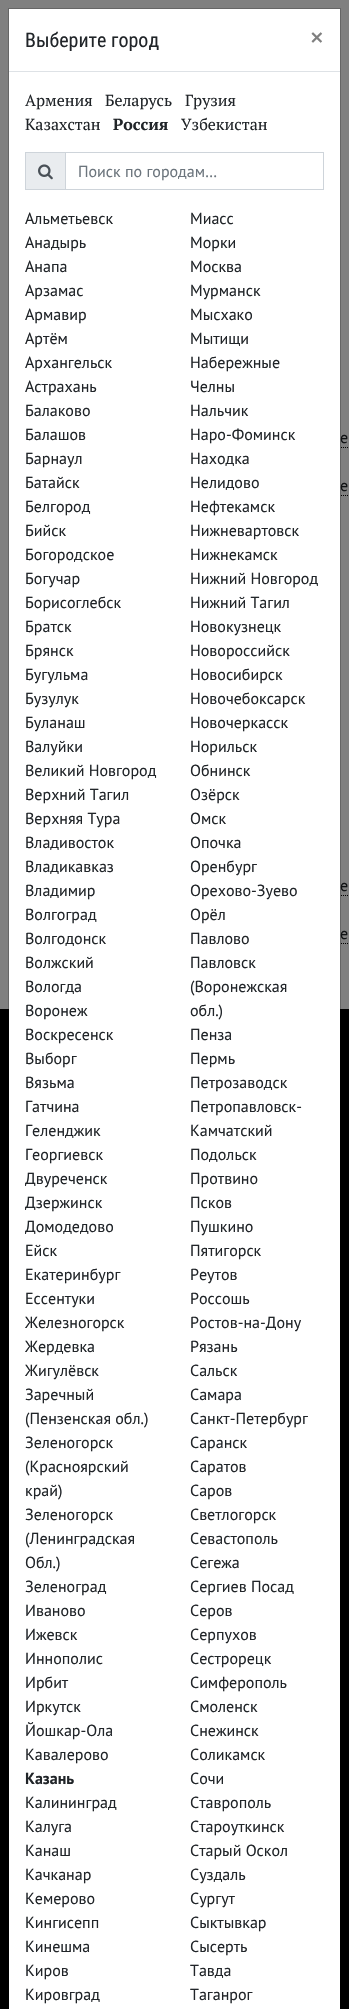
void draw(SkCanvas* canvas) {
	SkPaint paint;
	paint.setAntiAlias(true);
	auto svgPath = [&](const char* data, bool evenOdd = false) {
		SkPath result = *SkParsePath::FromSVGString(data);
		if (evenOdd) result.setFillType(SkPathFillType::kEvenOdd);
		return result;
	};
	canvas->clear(0xff808080);
	paint.setStroke(true);
	paint.setStrokeWidth(1);
	paint.setColor(0xff000000);
	paint.setPathEffect(SkDashPathEffect::Make({{1, 1}}, 0));
	canvas->drawPath(svgPath("M15 447.5H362"), paint);
	paint.setPathEffect(nullptr);
	paint.setPathEffect(SkDashPathEffect::Make({{1, 1}}, 0));
	canvas->drawPath(svgPath("M15 495.5H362"), paint);
	paint.setPathEffect(nullptr);
	paint.setPathEffect(SkDashPathEffect::Make({{1, 1}}, 0));
	canvas->drawPath(svgPath("M15 895.5H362"), paint);
	paint.setPathEffect(nullptr);
	paint.setPathEffect(SkDashPathEffect::Make({{1, 1}}, 0));
	canvas->drawPath(svgPath("M15 943.5H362"), paint);
	paint.setPathEffect(nullptr);
	paint.setStroke(false);
	canvas->drawRect(SkRect::MakeXYWH(0, 1009, 349, 1000), paint);
	paint.setColor(0xffffffff);
	canvas->drawRect(SkRect::MakeXYWH(9, 9, 331, 2000), paint);
	SkFont f1(fontMgr->matchFamilyStyle("PT Sans", SkFontStyle::Normal()), 16);
	f1.setSubpixel(true);
	paint.setColor(0xff111315);
	canvas->drawString("e", 340, 443, f1, paint);
	canvas->drawString("e", 340, 491, f1, paint);
	canvas->drawString("e", 340, 891, f1, paint);
	canvas->drawString("e", 340, 939, f1, paint);
	paint.setStroke(true);
	paint.setColor(0x33000000);
	canvas->drawRect(SkRect::MakeXYWH(8.5, 8.5, 332, 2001), paint);
	paint.setStroke(false);
	paint.setColor(0xffdee2e6);
	canvas->drawRect(SkRect::MakeXYWH(9, 71, 331, 1), paint);
	SkFont f2(fontMgr->matchFamilyStyle("Roboto Condensed", SkFontStyle::Normal()), 20);
	f2.setSubpixel(true);
	paint.setColor(0xff212529);
	canvas->drawString("Выберите город", 25, 47, f2, paint);
	SkFont f3(fontMgr->matchFamilyStyle("Open Sans", SkFontStyle(600, SkFontStyle::kNormal_Width, SkFontStyle::kUpright_Slant)), 24);
	f3.setSubpixel(true);
	paint.setColor(0xff808080);
	canvas->drawString("×", 310, 46, f3, paint);
	SkFont f4(fontMgr->matchFamilyStyle("PT Serif", SkFontStyle::Normal()), 16);
	f4.setSubpixel(true);
	paint.setColor(0xff212529);
	canvas->drawString("Армения", 25, 106, f4, paint);
	canvas->drawString("Беларусь", 105, 106, f4, paint);
	canvas->drawString("Грузия", 185, 106, f4, paint);
	canvas->drawString("Казахстан", 25, 130, f4, paint);
	SkFont f5(fontMgr->matchFamilyStyle("PT Serif", SkFontStyle::Bold()), 16);
	f5.setSubpixel(true);
	canvas->drawString("Россия", 113, 130, f5, paint);
	canvas->drawString("Узбекистан", 181, 130, f4, paint);
	paint.setColor(0xffe9ecef);
	canvas->drawRect(SkRect::MakeXYWH(25.5, 152.5, 40, 37), paint);
	paint.setStroke(true);
	paint.setColor(0xffced4da);
	canvas->drawRect(SkRect::MakeXYWH(25.5, 152.5, 40, 37), paint);
	canvas->drawImageRect(SkImages::DeferredFromEncodedData(SkData::MakeFromFileName("img1.png")), SkRect::MakeXYWH(38, 164, 15, 16), SkSamplingOptions());
	canvas->drawRect(SkRect::MakeXYWH(65.5, 152.5, 258, 37), paint);
	paint.setStroke(false);
	paint.setColor(0xff6c757d);
	canvas->drawString("Поиск по городам…", 78, 177, f1, paint);
	paint.setColor(0xff212529);
	canvas->drawString("Альметьевск", 25, 224, f1, paint);
	canvas->drawString("Миасс", 190, 224, f1, paint);
	canvas->drawString("Анадырь", 25, 248, f1, paint);
	canvas->drawString("Морки", 190, 248, f1, paint);
	canvas->drawString("Анапа", 25, 272, f1, paint);
	canvas->drawString("Москва", 190, 272, f1, paint);
	canvas->drawString("Арзамас", 25, 296, f1, paint);
	canvas->drawString("Мурманск", 190, 296, f1, paint);
	canvas->drawString("Армавир", 25, 320, f1, paint);
	canvas->drawString("Мысхако", 190, 320, f1, paint);
	canvas->drawString("Артём", 25, 344, f1, paint);
	canvas->drawString("Мытищи", 190, 344, f1, paint);
	canvas->drawString("Архангельск", 25, 368, f1, paint);
	canvas->drawString("Набережные", 190, 368, f1, paint);
	canvas->drawString("Челны", 190, 392, f1, paint);
	canvas->drawString("Астрахань", 25, 392, f1, paint);
	canvas->drawString("Балаково", 25, 416, f1, paint);
	canvas->drawString("Нальчик", 190, 416, f1, paint);
	canvas->drawString("Балашов", 25, 440, f1, paint);
	canvas->drawString("Наро-Фоминск", 190, 440, f1, paint);
	canvas->drawString("Барнаул", 25, 464, f1, paint);
	canvas->drawString("Находка", 190, 464, f1, paint);
	canvas->drawString("Батайск", 25, 488, f1, paint);
	canvas->drawString("Нелидово", 190, 488, f1, paint);
	canvas->drawString("Белгород", 25, 512, f1, paint);
	canvas->drawString("Нефтекамск", 190, 512, f1, paint);
	canvas->drawString("Бийск", 25, 536, f1, paint);
	canvas->drawString("Нижневартовск", 190, 536, f1, paint);
	canvas->drawString("Богородское", 25, 560, f1, paint);
	canvas->drawString("Нижнекамск", 190, 560, f1, paint);
	canvas->drawString("Богучар", 25, 584, f1, paint);
	canvas->drawString("Нижний Новгород", 190, 584, f1, paint);
	canvas->drawString("Борисоглебск", 25, 608, f1, paint);
	canvas->drawString("Нижний Тагил", 190, 608, f1, paint);
	canvas->drawString("Братск", 25, 632, f1, paint);
	canvas->drawString("Новокузнецк", 190, 632, f1, paint);
	canvas->drawString("Брянск", 25, 656, f1, paint);
	canvas->drawString("Новороссийск", 190, 656, f1, paint);
	canvas->drawString("Бугульма", 25, 680, f1, paint);
	canvas->drawString("Новосибирск", 190, 680, f1, paint);
	canvas->drawString("Бузулук", 25, 704, f1, paint);
	canvas->drawString("Новочебоксарск", 190, 704, f1, paint);
	canvas->drawString("Буланаш", 25, 728, f1, paint);
	canvas->drawString("Новочеркасск", 190, 728, f1, paint);
	canvas->drawString("Валуйки", 25, 752, f1, paint);
	canvas->drawString("Норильск", 190, 752, f1, paint);
	canvas->drawString("Великий Новгород", 25, 776, f1, paint);
	canvas->drawString("Обнинск", 190, 776, f1, paint);
	canvas->drawString("Верхний Тагил", 25, 800, f1, paint);
	canvas->drawString("Озёрск", 190, 800, f1, paint);
	canvas->drawString("Верхняя Тура", 25, 824, f1, paint);
	canvas->drawString("Омск", 190, 824, f1, paint);
	canvas->drawString("Владивосток", 25, 848, f1, paint);
	canvas->drawString("Опочка", 190, 848, f1, paint);
	canvas->drawString("Владикавказ", 25, 872, f1, paint);
	canvas->drawString("Оренбург", 190, 872, f1, paint);
	canvas->drawString("Владимир", 25, 896, f1, paint);
	canvas->drawString("Орехово-Зуево", 190, 896, f1, paint);
	canvas->drawString("Волгоград", 25, 920, f1, paint);
	canvas->drawString("Орёл", 190, 920, f1, paint);
	canvas->drawString("Волгодонск", 25, 944, f1, paint);
	canvas->drawString("Павлово", 190, 944, f1, paint);
	canvas->drawString("Волжский", 25, 968, f1, paint);
	canvas->drawString("Павловск", 190, 968, f1, paint);
	canvas->drawString("(Воронежская", 190, 992, f1, paint);
	canvas->drawString("обл.)", 190, 1016, f1, paint);
	canvas->drawString("Вологда", 25, 992, f1, paint);
	canvas->drawString("Воронеж", 25, 1016, f1, paint);
	canvas->drawString("Воскресенск", 25, 1040, f1, paint);
	canvas->drawString("Пенза", 190, 1040, f1, paint);
	canvas->drawString("Выборг", 25, 1064, f1, paint);
	canvas->drawString("Пермь", 190, 1064, f1, paint);
	canvas->drawString("Вязьма", 25, 1088, f1, paint);
	canvas->drawString("Петрозаводск", 190, 1088, f1, paint);
	canvas->drawString("Гатчина", 25, 1112, f1, paint);
	canvas->drawString("Петропавловск-", 190, 1112, f1, paint);
	canvas->drawString("Камчатский", 190, 1136, f1, paint);
	canvas->drawString("Геленджик", 25, 1136, f1, paint);
	canvas->drawString("Георгиевск", 25, 1160, f1, paint);
	canvas->drawString("Подольск", 190, 1160, f1, paint);
	canvas->drawString("Двуреченск", 25, 1184, f1, paint);
	canvas->drawString("Протвино", 190, 1184, f1, paint);
	canvas->drawString("Дзержинск", 25, 1208, f1, paint);
	canvas->drawString("Псков", 190, 1208, f1, paint);
	canvas->drawString("Домодедово", 25, 1232, f1, paint);
	canvas->drawString("Пушкино", 190, 1232, f1, paint);
	canvas->drawString("Ейск", 25, 1256, f1, paint);
	canvas->drawString("Пятигорск", 190, 1256, f1, paint);
	canvas->drawString("Екатеринбург", 25, 1280, f1, paint);
	canvas->drawString("Реутов", 190, 1280, f1, paint);
	canvas->drawString("Ессентуки", 25, 1304, f1, paint);
	canvas->drawString("Россошь", 190, 1304, f1, paint);
	canvas->drawString("Железногорск", 25, 1328, f1, paint);
	canvas->drawString("Ростов-на-Дону", 190, 1328, f1, paint);
	canvas->drawString("Жердевка", 25, 1352, f1, paint);
	canvas->drawString("Рязань", 190, 1352, f1, paint);
	canvas->drawString("Жигулёвск", 25, 1376, f1, paint);
	canvas->drawString("Сальск", 190, 1376, f1, paint);
	canvas->drawString("Заречный", 25, 1400, f1, paint);
	canvas->drawString("(Пензенская обл.)", 25, 1424, f1, paint);
	canvas->drawString("Самара", 190, 1400, f1, paint);
	canvas->drawString("Санкт-Петербург", 190, 1424, f1, paint);
	canvas->drawString("Зеленогорск", 25, 1448, f1, paint);
	canvas->drawString("(Красноярский", 25, 1472, f1, paint);
	canvas->drawString("край)", 25, 1496, f1, paint);
	canvas->drawString("Саранск", 190, 1448, f1, paint);
	canvas->drawString("Саратов", 190, 1472, f1, paint);
	canvas->drawString("Саров", 190, 1496, f1, paint);
	canvas->drawString("Зеленогорск", 25, 1520, f1, paint);
	canvas->drawString("(Ленинградская", 25, 1544, f1, paint);
	canvas->drawString("Обл.)", 25, 1568, f1, paint);
	canvas->drawString("Светлогорск", 190, 1520, f1, paint);
	canvas->drawString("Севастополь", 190, 1544, f1, paint);
	canvas->drawString("Сегежа", 190, 1568, f1, paint);
	canvas->drawString("Зеленоград", 25, 1592, f1, paint);
	canvas->drawString("Сергиев Посад", 190, 1592, f1, paint);
	canvas->drawString("Иваново", 25, 1616, f1, paint);
	canvas->drawString("Серов", 190, 1616, f1, paint);
	canvas->drawString("Ижевск", 25, 1640, f1, paint);
	canvas->drawString("Серпухов", 190, 1640, f1, paint);
	canvas->drawString("Иннополис", 25, 1664, f1, paint);
	canvas->drawString("Сестрорецк", 190, 1664, f1, paint);
	canvas->drawString("Ирбит", 25, 1688, f1, paint);
	canvas->drawString("Симферополь", 190, 1688, f1, paint);
	canvas->drawString("Иркутск", 25, 1712, f1, paint);
	canvas->drawString("Смоленск", 190, 1712, f1, paint);
	canvas->drawString("Йошкар-Ола", 25, 1736, f1, paint);
	canvas->drawString("Снежинск", 190, 1736, f1, paint);
	canvas->drawString("Кавалерово", 25, 1760, f1, paint);
	canvas->drawString("Соликамск", 190, 1760, f1, paint);
	SkFont f6(fontMgr->matchFamilyStyle("PT Sans", SkFontStyle::Bold()), 16);
	f6.setSubpixel(true);
	canvas->drawString("Казань", 25, 1784, f6, paint);
	canvas->drawString("Сочи", 190, 1784, f1, paint);
	canvas->drawString("Калининград", 25, 1808, f1, paint);
	canvas->drawString("Ставрополь", 190, 1808, f1, paint);
	canvas->drawString("Калуга", 25, 1832, f1, paint);
	canvas->drawString("Староуткинск", 190, 1832, f1, paint);
	canvas->drawString("Канаш", 25, 1856, f1, paint);
	canvas->drawString("Старый Оскол", 190, 1856, f1, paint);
	canvas->drawString("Качканар", 25, 1880, f1, paint);
	canvas->drawString("Суздаль", 190, 1880, f1, paint);
	canvas->drawString("Кемерово", 25, 1904, f1, paint);
	canvas->drawString("Сургут", 190, 1904, f1, paint);
	canvas->drawString("Кингисепп", 25, 1928, f1, paint);
	canvas->drawString("Сыктывкар", 190, 1928, f1, paint);
	canvas->drawString("Кинешма", 25, 1952, f1, paint);
	canvas->drawString("Сысерть", 190, 1952, f1, paint);
	canvas->drawString("Киров", 25, 1976, f1, paint);
	canvas->drawString("Тавда", 190, 1976, f1, paint);
	canvas->drawString("Кировград", 25, 2000, f1, paint);
	canvas->drawString("Таганрог", 190, 2000, f1, paint);
}
